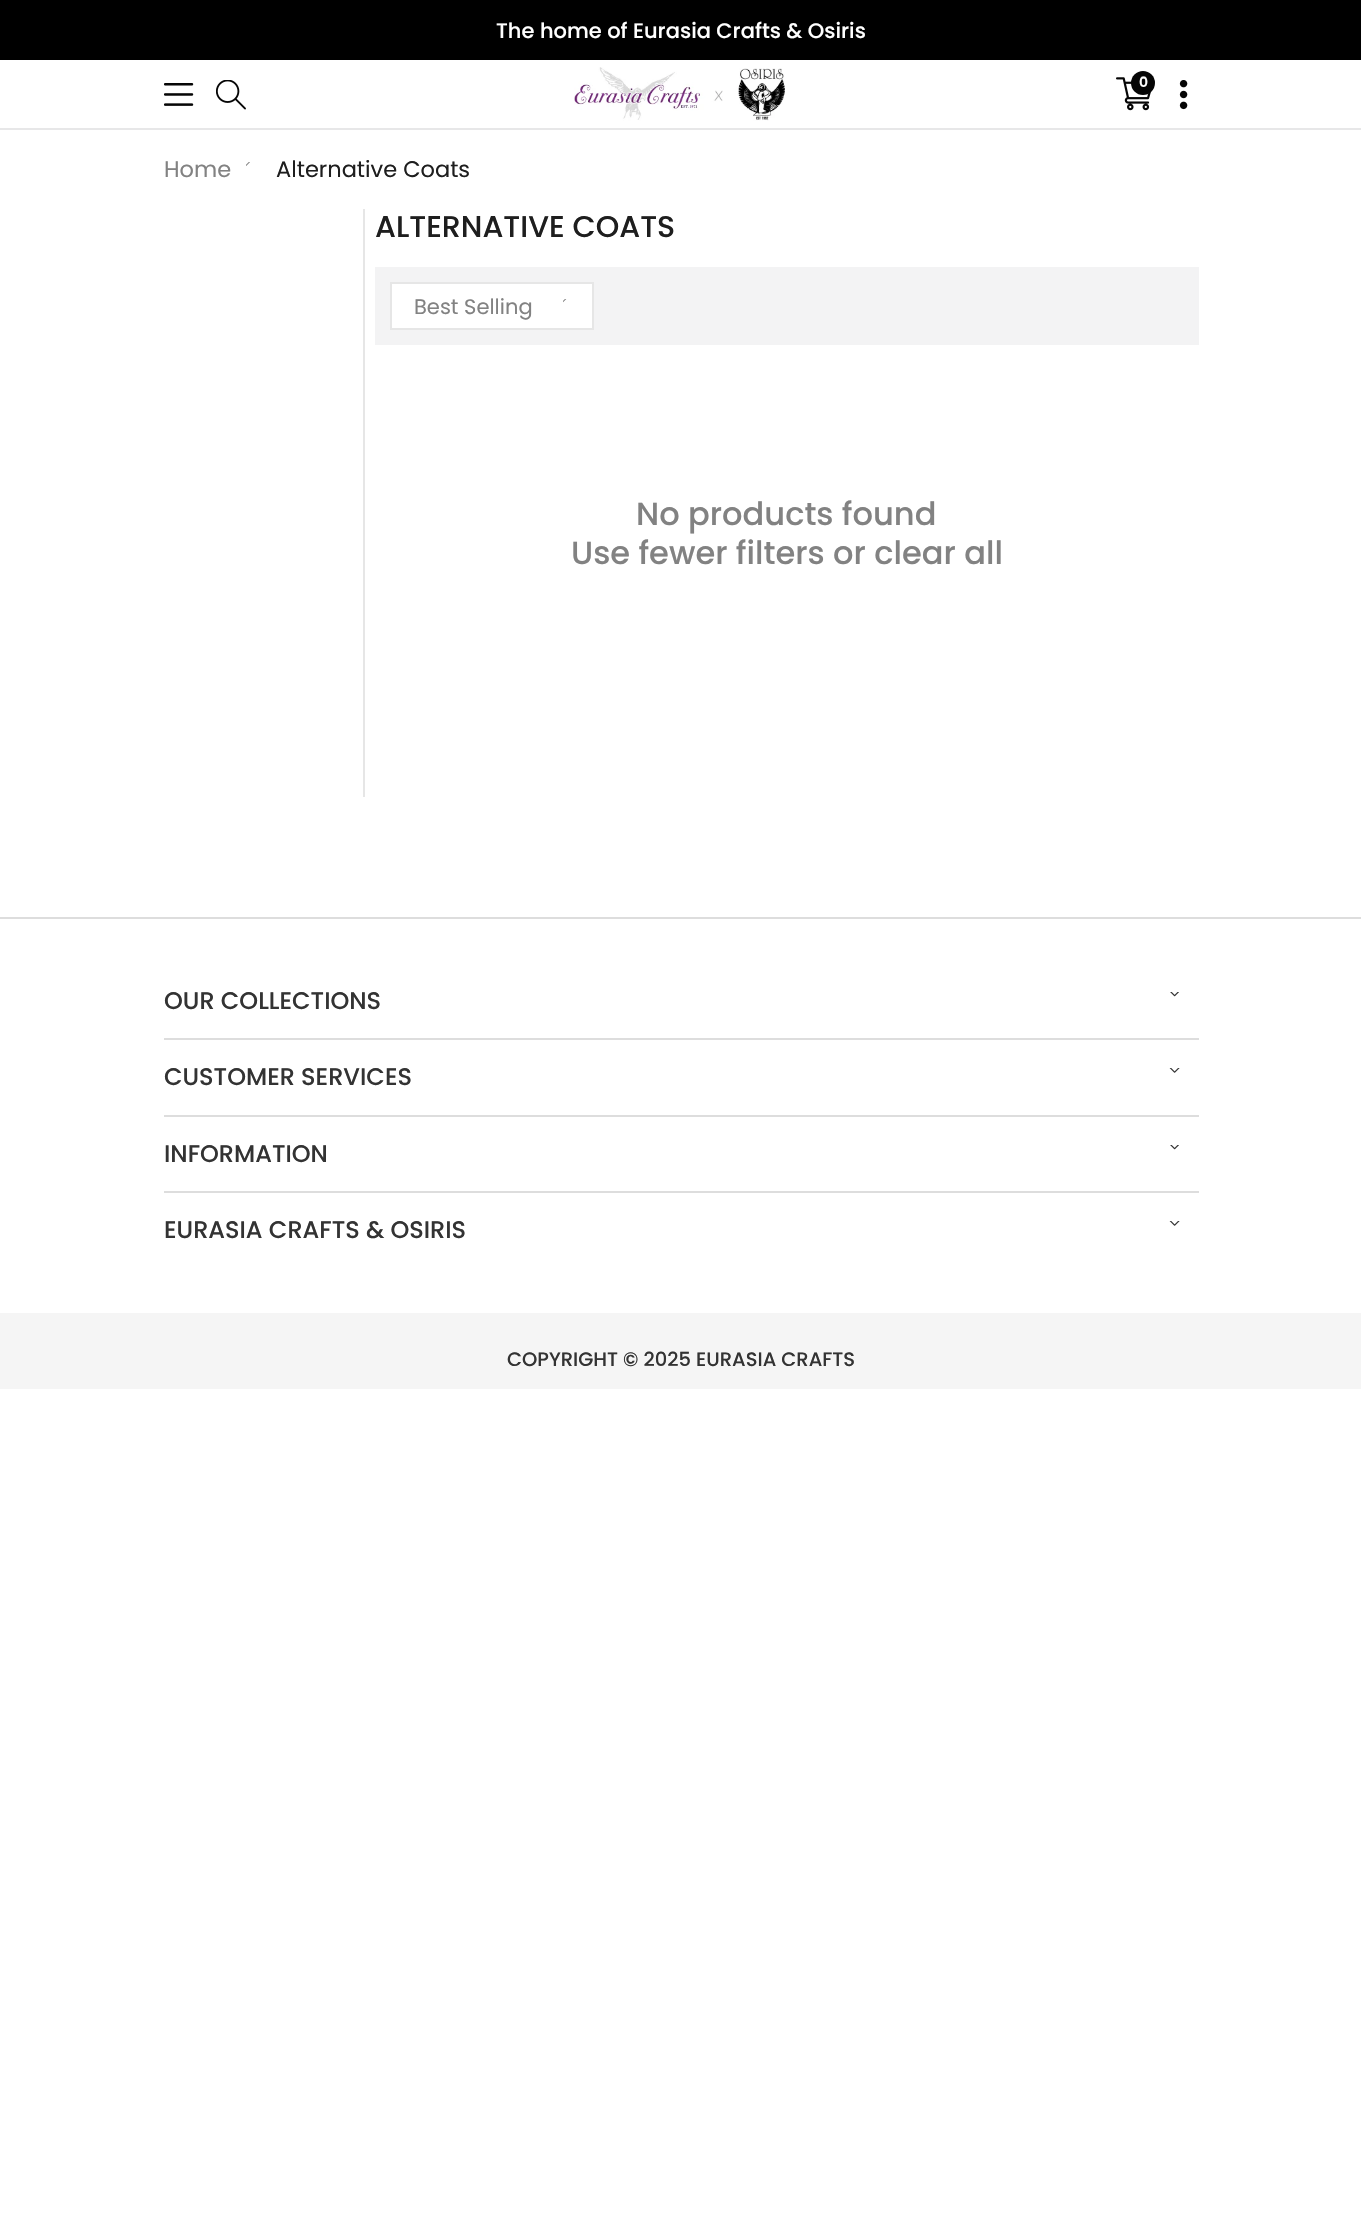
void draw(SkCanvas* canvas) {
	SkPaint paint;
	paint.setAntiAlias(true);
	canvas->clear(0xffffffff);
	paint.setColor(0xff000000);
	canvas->drawRect(SkRect::MakeXYWH(0, 0, 1361, 60), paint);
	SkFont f1(fontMgr->matchFamilyStyle("Poppins", SkFontStyle(500, SkFontStyle::kNormal_Width, SkFontStyle::kUpright_Slant)), 21);
	f1.setSubpixel(true);
	paint.setColor(0xffffffff);
	canvas->drawString("The home of Eurasia Crafts & Osiris", 496, 38, f1, paint);
	paint.setColor(0xffe7e7e8);
	canvas->drawRect(SkRect::MakeXYWH(0, 128, 1361, 2), paint);
	canvas->drawImageRect(SkImages::DeferredFromEncodedData(SkData::MakeFromFileName("img1.png")), SkRect::MakeXYWH(164, 83, 30, 23), SkSamplingOptions());
	canvas->drawImageRect(SkImages::DeferredFromEncodedData(SkData::MakeFromFileName("img2.png")), SkRect::MakeXYWH(216, 80, 30, 30), SkSamplingOptions());
	canvas->drawImageRect(SkImages::DeferredFromEncodedData(SkData::MakeFromFileName("img3.png")), SkRect::MakeXYWH(574, 67, 211, 54), SkSamplingOptions());
	canvas->drawImageRect(SkImages::DeferredFromEncodedData(SkData::MakeFromFileName("img4.png")), SkRect::MakeXYWH(1116, 77, 36, 34), SkSamplingOptions());
	paint.setColor(0xff060606);
	canvas->drawCircle(1143, 83, 12, paint);
	SkFont f2(fontMgr->matchFamilyStyle("Poppins", SkFontStyle(600, SkFontStyle::kNormal_Width, SkFontStyle::kUpright_Slant)), 14);
	f2.setSubpixel(true);
	paint.setColor(0xffffffff);
	canvas->drawString("0", 1139, 87, f2, paint);
	canvas->drawImageRect(SkImages::DeferredFromEncodedData(SkData::MakeFromFileName("img5.png")), SkRect::MakeXYWH(1179, 80, 9, 30), SkSamplingOptions());
	SkFont f3(fontMgr->matchFamilyStyle("Poppins", SkFontStyle::Normal()), 22.5);
	f3.setSubpixel(true);
	paint.setColor(0xff828282);
	canvas->drawString("Home", 164, 177, f3, paint);
	canvas->drawImageRect(SkImages::DeferredFromEncodedData(SkData::MakeFromFileName("img6.png")), SkRect::MakeXYWH(246, 162, 4, 4), SkSamplingOptions());
	paint.setColor(0xff1e1e1e);
	canvas->drawString("Alternative Coats", 276, 177, f3, paint);
	paint.setColor(0xffe6e6e6);
	canvas->drawRect(SkRect::MakeXYWH(363, 209, 2, 588), paint);
	SkFont f4(fontMgr->matchFamilyStyle("Poppins", SkFontStyle(500, SkFontStyle::kNormal_Width, SkFontStyle::kUpright_Slant)), 30);
	f4.setSubpixel(true);
	paint.setColor(0xff1e1e1e);
	canvas->drawString("ALTERNATIVE COATS", 375, 237, f4, paint);
	paint.setColor(0xfff3f3f4);
	canvas->drawRect(SkRect::MakeXYWH(375, 267, 824, 78), paint);
	paint.setColor(0xffffffff);
	canvas->drawRect(SkRect::MakeXYWH(391, 283, 202, 46), paint);
	paint.setStroke(true);
	paint.setStrokeWidth(2);
	paint.setColor(0xffe6e6e6);
	canvas->drawRect(SkRect::MakeXYWH(391, 283, 202, 46), paint);
	SkFont f5(fontMgr->matchFamilyStyle("Poppins", SkFontStyle::Normal()), 21);
	f5.setSubpixel(true);
	paint.setStroke(false);
	paint.setColor(0xff828282);
	canvas->drawString("Best Selling", 414, 314, f5, paint);
	canvas->drawImageRect(SkImages::DeferredFromEncodedData(SkData::MakeFromFileName("img7.png")), SkRect::MakeXYWH(563, 299, 4, 4), SkSamplingOptions());
	SkFont f6(fontMgr->matchFamilyStyle("Poppins", SkFontStyle(500, SkFontStyle::kNormal_Width, SkFontStyle::kUpright_Slant)), 32.1);
	f6.setSubpixel(true);
	canvas->drawString("No products found", 636, 525, f6, paint);
	canvas->drawString("Use fewer filters or clear all", 571, 564, f6, paint);
	paint.setColor(0xffdddddd);
	canvas->drawRect(SkRect::MakeXYWH(0, 917, 1361, 2), paint);
	canvas->drawRect(SkRect::MakeXYWH(164, 1038, 1035, 2), paint);
	SkFont f7(fontMgr->matchFamilyStyle("Poppins", SkFontStyle(500, SkFontStyle::kNormal_Width, SkFontStyle::kUpright_Slant)), 24);
	f7.setSubpixel(true);
	paint.setColor(0xff333333);
	canvas->drawString("OUR COLLECTIONS", 164, 1009, f7, paint);
	canvas->drawImageRect(SkImages::DeferredFromEncodedData(SkData::MakeFromFileName("img8.png")), SkRect::MakeXYWH(1170, 992, 9, 5), SkSamplingOptions());
	paint.setColor(0xffdddddd);
	canvas->drawRect(SkRect::MakeXYWH(164, 1115, 1035, 2), paint);
	paint.setColor(0xff333333);
	canvas->drawString("CUSTOMER SERVICES", 164, 1085, f7, paint);
	canvas->drawImageRect(SkImages::DeferredFromEncodedData(SkData::MakeFromFileName("img9.png")), SkRect::MakeXYWH(1169, 1068, 11, 5), SkSamplingOptions());
	paint.setColor(0xffdddddd);
	canvas->drawRect(SkRect::MakeXYWH(164, 1191, 1035, 2), paint);
	paint.setColor(0xff333333);
	canvas->drawString("INFORMATION", 164, 1162, f7, paint);
	canvas->drawImageRect(SkImages::DeferredFromEncodedData(SkData::MakeFromFileName("img8.png")), SkRect::MakeXYWH(1170, 1145, 9, 5), SkSamplingOptions());
	canvas->drawString("EURASIA CRAFTS & OSIRIS", 164, 1238, f7, paint);
	canvas->drawImageRect(SkImages::DeferredFromEncodedData(SkData::MakeFromFileName("img9.png")), SkRect::MakeXYWH(1169, 1221, 11, 5), SkSamplingOptions());
	paint.setColor(0xfff5f5f5);
	canvas->drawRect(SkRect::MakeXYWH(0, 1313, 1361, 76), paint);
	SkFont f8(fontMgr->matchFamilyStyle("Poppins", SkFontStyle(500, SkFontStyle::kNormal_Width, SkFontStyle::kUpright_Slant)), 19.5);
	f8.setSubpixel(true);
	paint.setColor(0xff333333);
	canvas->drawString("COPYRIGHT © 2025 EURASIA CRAFTS", 507, 1366, f8, paint);
}
